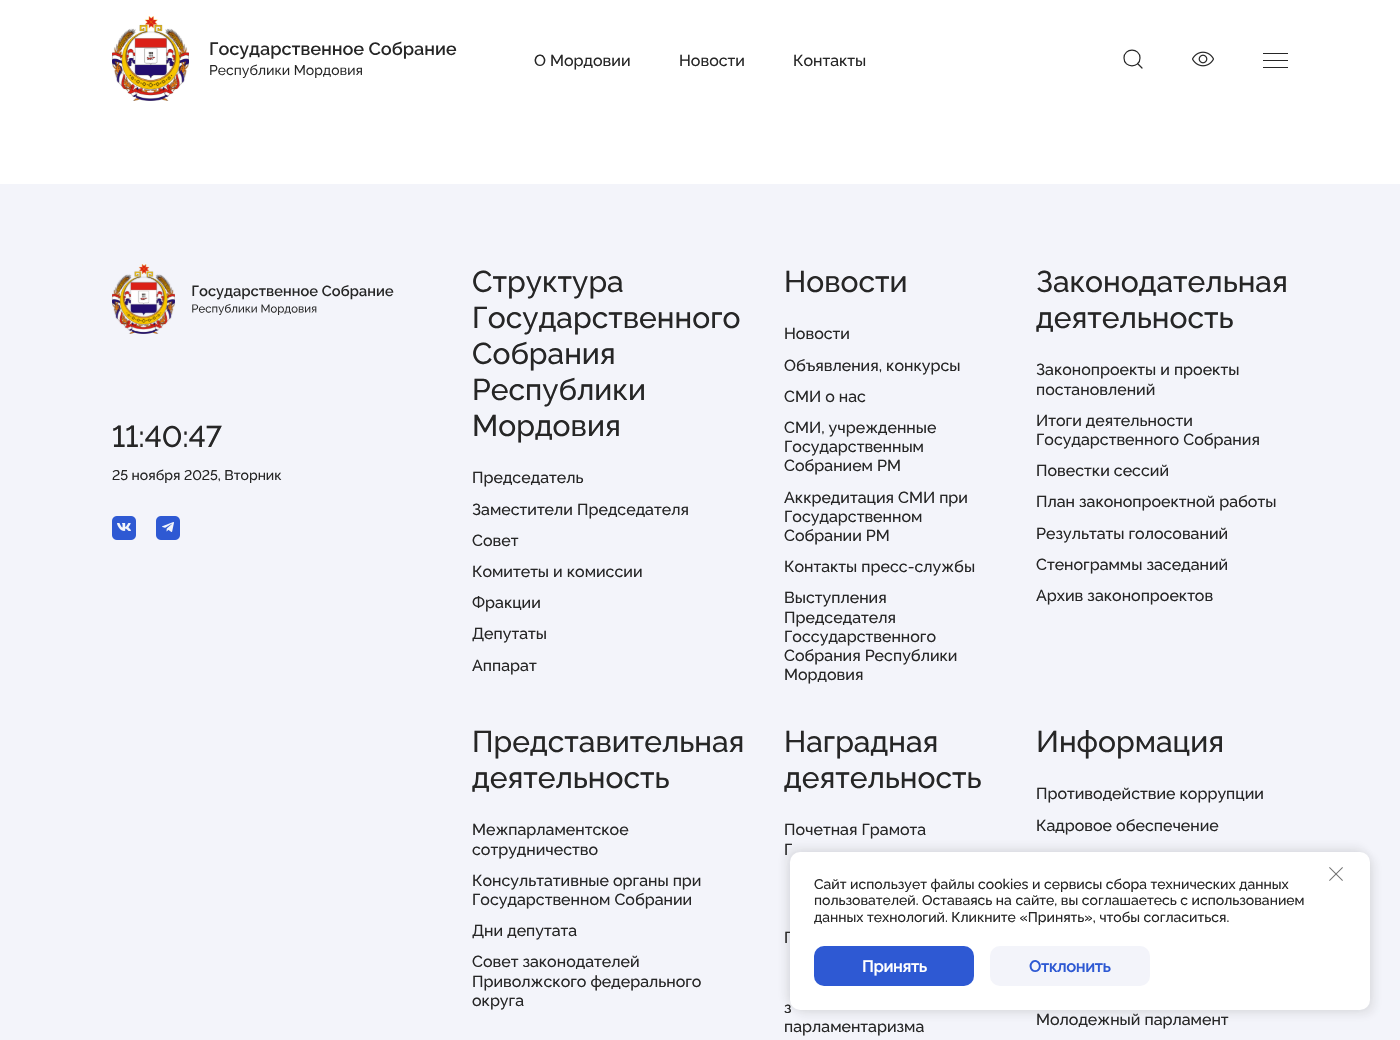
void draw(SkCanvas* canvas) {
	SkPaint paint;
	paint.setAntiAlias(true);
	auto svgPath = [&](const char* data, bool evenOdd = false) {
		SkPath result = *SkParsePath::FromSVGString(data);
		if (evenOdd) result.setFillType(SkPathFillType::kEvenOdd);
		return result;
	};
	canvas->clear(0xffffffff);
	canvas->drawImageRect(SkImages::DeferredFromEncodedData(SkData::MakeFromFileName("img1.png")), SkRect::MakeXYWH(112, 16, 345, 85), SkSamplingOptions());
	SkFont f1(fontMgr->matchFamilyStyle("Raleway", SkFontStyle(100, SkFontStyle::kNormal_Width, SkFontStyle::kUpright_Slant)), 16);
	f1.setSubpixel(true);
	paint.setColor(0xff262626);
	canvas->drawString("О Мордовии", 534, 66, f1, paint);
	canvas->drawString("Новости", 679, 66, f1, paint);
	canvas->drawString("Контакты", 793, 66, f1, paint);
	paint.setStroke(true);
	paint.setStrokeWidth(1.2);
	paint.setStrokeCap(SkPaint::kRound_Cap);
	paint.setStrokeJoin(SkPaint::kRound_Join);
	canvas->drawPath(svgPath("M1142 68L1137.5 63.5M1140 58C1140 68.5 1124 68.5 1124 58C1124 47.5 1140 47.5 1140 58Z"), paint);
	canvas->drawImageRect(SkImages::DeferredFromEncodedData(SkData::MakeFromFileName("img2.png")), SkRect::MakeXYWH(1192, 51, 22, 16), SkSamplingOptions());
	paint.setStroke(false);
	canvas->drawRect(SkRect::MakeXYWH(1263, 60, 25, 1), paint);
	canvas->drawRect(SkRect::MakeXYWH(1263, 53, 25, 1), paint);
	canvas->drawRect(SkRect::MakeXYWH(1263, 67, 25, 1), paint);
	paint.setColor(0xfff3f4fa);
	canvas->drawRect(SkRect::MakeXYWH(0, 184, 1400, 856), paint);
	canvas->drawImageRect(SkImages::DeferredFromEncodedData(SkData::MakeFromFileName("img3.png")), SkRect::MakeXYWH(112, 264, 282, 70), SkSamplingOptions());
	SkFont f2(fontMgr->matchFamilyStyle("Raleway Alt", SkFontStyle(100, SkFontStyle::kNormal_Width, SkFontStyle::kUpright_Slant)), 30);
	f2.setSubpixel(true);
	paint.setColor(0xff262626);
	canvas->drawString("11:40:47", 112, 447, f2, paint);
	SkFont f3(fontMgr->matchFamilyStyle("Raleway Alt", SkFontStyle(100, SkFontStyle::kNormal_Width, SkFontStyle::kUpright_Slant)), 14);
	f3.setSubpixel(true);
	canvas->drawString("25 ноября 2025, Вторник", 112, 480, f3, paint);
	canvas->drawImageRect(SkImages::DeferredFromEncodedData(SkData::MakeFromFileName("img4.png")), SkRect::MakeXYWH(112, 516, 24, 24), SkSamplingOptions());
	canvas->drawImageRect(SkImages::DeferredFromEncodedData(SkData::MakeFromFileName("img5.png")), SkRect::MakeXYWH(156, 516, 24, 24), SkSamplingOptions());
	SkFont f4(fontMgr->matchFamilyStyle("Raleway", SkFontStyle(100, SkFontStyle::kNormal_Width, SkFontStyle::kUpright_Slant)), 30);
	f4.setSubpixel(true);
	canvas->drawString("Структура", 472, 292, f4, paint);
	canvas->drawString("Государственного", 472, 328, f4, paint);
	canvas->drawString("Собрания", 472, 364, f4, paint);
	canvas->drawString("Республики", 472, 400, f4, paint);
	canvas->drawString("Мордовия", 472, 436, f4, paint);
	canvas->drawString("Председатель", 472, 483, f1, paint);
	canvas->drawString("Заместители Председателя", 472, 515, f1, paint);
	canvas->drawString("Совет", 472, 546, f1, paint);
	canvas->drawString("Комитеты и комиссии", 472, 577, f1, paint);
	canvas->drawString("Фракции", 472, 608, f1, paint);
	canvas->drawString("Депутаты", 472, 639, f1, paint);
	canvas->drawString("Аппарат", 472, 671, f1, paint);
	canvas->drawString("Новости", 784, 292, f4, paint);
	canvas->drawString("Новости", 784, 339, f1, paint);
	canvas->drawString("Объявления, конкурсы", 784, 371, f1, paint);
	canvas->drawString("СМИ о нас", 784, 402, f1, paint);
	canvas->drawString("СМИ, учрежденные", 784, 433, f1, paint);
	canvas->drawString("Государственным", 784, 452, f1, paint);
	canvas->drawString("Собранием РМ", 784, 471, f1, paint);
	canvas->drawString("Аккредитация СМИ при", 784, 503, f1, paint);
	canvas->drawString("Государственном", 784, 522, f1, paint);
	canvas->drawString("Собрании РМ", 784, 541, f1, paint);
	canvas->drawString("Контакты пресс-службы", 784, 572, f1, paint);
	canvas->drawString("Выступления", 784, 603, f1, paint);
	canvas->drawString("Председателя", 784, 623, f1, paint);
	canvas->drawString("Госсударственного", 784, 642, f1, paint);
	canvas->drawString("Собрания Республики", 784, 661, f1, paint);
	canvas->drawString("Мордовия", 784, 680, f1, paint);
	canvas->drawString("Законодательная", 1036, 292, f4, paint);
	canvas->drawString("деятельность", 1036, 328, f4, paint);
	canvas->drawString("Законопроекты и проекты", 1036, 375, f1, paint);
	canvas->drawString("постановлений", 1036, 395, f1, paint);
	canvas->drawString("Итоги деятельности", 1036, 426, f1, paint);
	canvas->drawString("Государственного Собрания", 1036, 445, f1, paint);
	canvas->drawString("Повестки сессий", 1036, 476, f1, paint);
	canvas->drawString("План законопроектной работы", 1036, 507, f1, paint);
	canvas->drawString("Результаты голосований", 1036, 539, f1, paint);
	canvas->drawString("Стенограммы заседаний", 1036, 570, f1, paint);
	canvas->drawString("Архив законопроектов", 1036, 601, f1, paint);
	canvas->drawString("Представительная", 472, 752, f4, paint);
	canvas->drawString("деятельность", 472, 788, f4, paint);
	canvas->drawString("Межпарламентское", 472, 835, f1, paint);
	canvas->drawString("сотрудничество", 472, 855, f1, paint);
	canvas->drawString("Консультативные органы при", 472, 886, f1, paint);
	canvas->drawString("Государственном Собрании", 472, 905, f1, paint);
	canvas->drawString("Дни депутата", 472, 936, f1, paint);
	canvas->drawString("Совет законодателей", 472, 967, f1, paint);
	canvas->drawString("Приволжского федерального", 472, 987, f1, paint);
	canvas->drawString("округа", 472, 1006, f1, paint);
	canvas->drawString("Наградная", 784, 752, f4, paint);
	canvas->drawString("деятельность", 784, 788, f4, paint);
	canvas->drawString("Почетная Грамота", 784, 835, f1, paint);
	canvas->drawString("Г", 784, 855, f1, paint);
	canvas->drawString("Г", 784, 943, f1, paint);
	canvas->drawString("з", 784, 1013, f1, paint);
	canvas->drawString("парламентаризма", 784, 1032, f1, paint);
	canvas->drawString("Информация", 1036, 752, f4, paint);
	canvas->drawString("Противодействие коррупции", 1036, 799, f1, paint);
	canvas->drawString("Кадровое обеспечение", 1036, 831, f1, paint);
	canvas->drawString("Молодежный парламент", 1036, 1025, f1, paint);
	paint.setColor(0x1a262626);
	paint.setMaskFilter(SkMaskFilter::MakeBlur(kNormal_SkBlurStyle, 5));
	canvas->drawRoundRect(SkRect::MakeXYWH(794, 856, 580, 158), 10, 10, paint);
	paint.setMaskFilter(nullptr);
	paint.setMaskFilter(SkMaskFilter::MakeBlur(kNormal_SkBlurStyle, 5));
	canvas->drawRoundRect(SkRect::MakeXYWH(786, 848, 580, 158), 10, 10, paint);
	paint.setMaskFilter(nullptr);
	paint.setColor(0xffffffff);
	canvas->drawRoundRect(SkRect::MakeXYWH(790, 852, 580, 158), 10, 10, paint);
	canvas->drawImageRect(SkImages::DeferredFromEncodedData(SkData::MakeFromFileName("img6.png")), SkRect::MakeXYWH(1329, 867, 14, 14), SkSamplingOptions());
	SkFont f5(fontMgr->matchFamilyStyle("Raleway", SkFontStyle(100, SkFontStyle::kNormal_Width, SkFontStyle::kUpright_Slant)), 14);
	f5.setSubpixel(true);
	paint.setColor(0xff262626);
	canvas->drawString("Сайт использует файлы cookies и сервисы сбора технических данных", 814, 889, f5, paint);
	canvas->drawString("пользователей. Оставаясь на сайте, вы соглашаетесь с использованием", 814, 905, f5, paint);
	canvas->drawString("данных технологий. Кликните «Принять», чтобы согласиться.", 814, 922, f5, paint);
	paint.setColor(0xff2e59d3);
	canvas->drawRoundRect(SkRect::MakeXYWH(814, 946, 160, 40), 10, 10, paint);
	SkFont f6(fontMgr->matchFamilyStyle("Raleway", SkFontStyle::Bold()), 16);
	f6.setSubpixel(true);
	paint.setColor(0xffffffff);
	canvas->drawString("Принять", 862, 972, f6, paint);
	paint.setColor(0xfff3f4fa);
	canvas->drawRoundRect(SkRect::MakeXYWH(990, 946, 160, 40), 10, 10, paint);
	paint.setColor(0xff2e59d3);
	canvas->drawString("Отклонить", 1029, 972, f6, paint);
}
